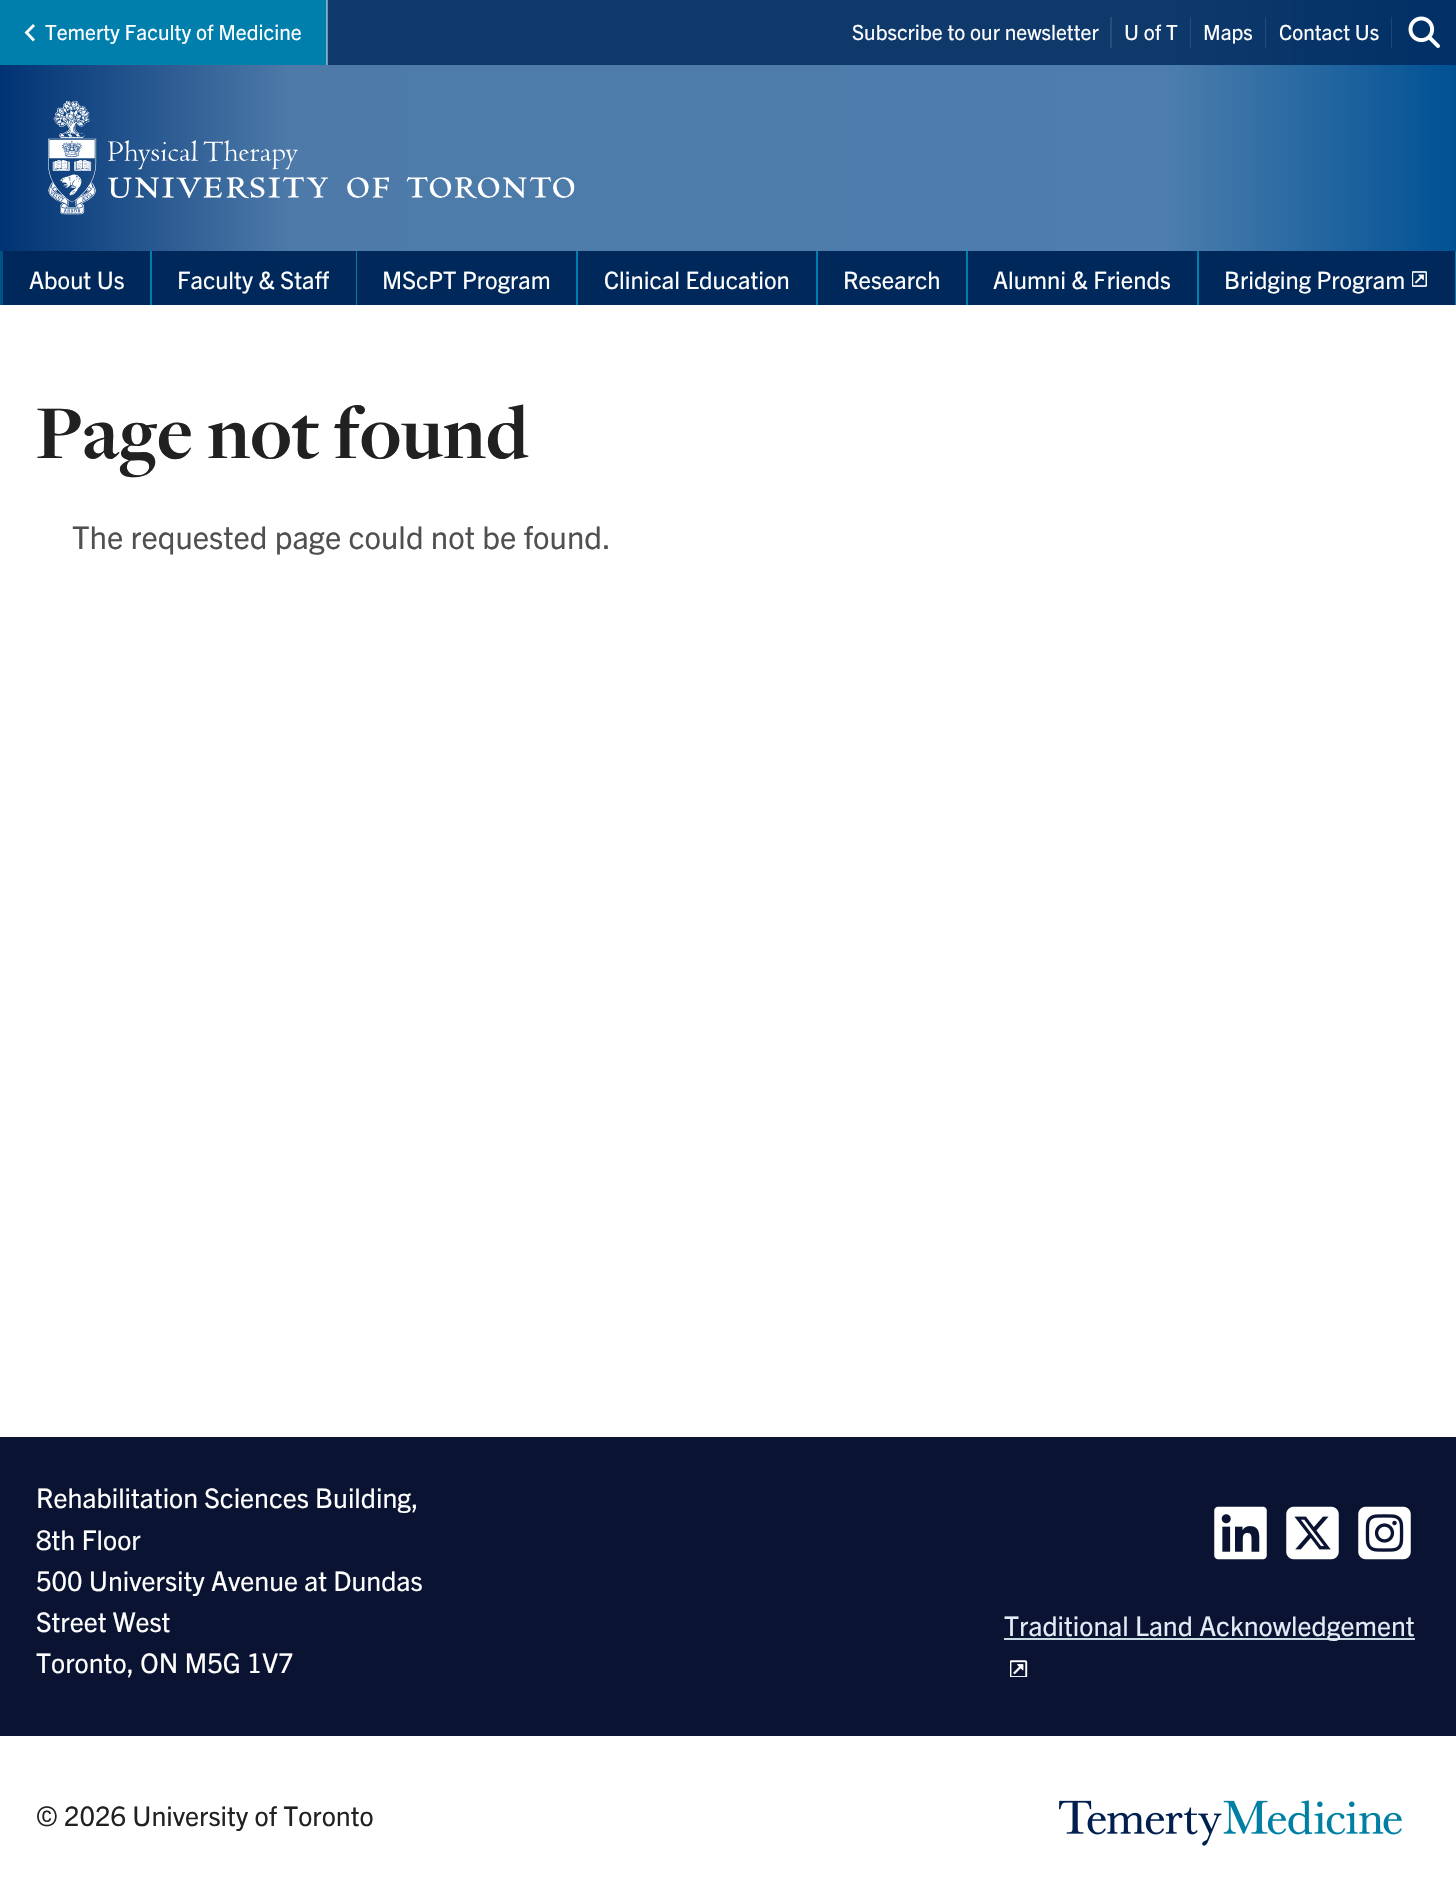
void draw(SkCanvas* canvas) {
	SkPaint paint;
	paint.setAntiAlias(true);
	auto svgPath = [&](const char* data, bool evenOdd = false) {
		SkPath result = *SkParsePath::FromSVGString(data);
		if (evenOdd) result.setFillType(SkPathFillType::kEvenOdd);
		return result;
	};
	canvas->clear(0xffffffff);
	{
		const SkColor colors[] = {0xff005194, 0xff4d7ead, 0xff4d7aa9, 0xff003374};
		const float stops[] = {0, 0.2, 0.8, 1};
		const SkPoint ends[] = {{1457, 152}, {0, 152}};
		paint.setShader(SkGradientShader::MakeLinear(ends, colors, stops, 4, SkTileMode::kClamp));
		paint.setAlpha(255);
	}
	canvas->drawRect(SkRect::MakeXYWH(0, 65, 1456, 186), paint);
	{
		const SkColor colors[] = {0xff003066, 0xff0f396b, 0xff0f386b, 0xff002a60};
		const float stops[] = {0, 0.2, 0.8, 1};
		const SkPoint ends[] = {{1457, 152}, {0, 152}};
		paint.setShader(SkGradientShader::MakeLinear(ends, colors, stops, 4, SkTileMode::kClamp));
		paint.setAlpha(255);
	}
	canvas->drawRect(SkRect::MakeXYWH(328, 0, 1128, 65), paint);
	{
		const SkColor colors[] = {0xff728eae, 0xff7993b1, 0xff7992b1, 0xff728bab};
		const float stops[] = {0, 0.2, 0.8, 1};
		const SkPoint ends[] = {{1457, 152}, {0, 152}};
		paint.setShader(SkGradientShader::MakeLinear(ends, colors, stops, 4, SkTileMode::kClamp));
		paint.setAlpha(255);
	}
	canvas->drawRect(SkRect::MakeXYWH(327, 0, 1, 65), paint);
	paint.setShader(nullptr);
	paint.setColor(0xff007fad);
	canvas->drawRect(SkRect::MakeXYWH(0, 0, 326, 65), paint);
	paint.setColor(0xff72b6d2);
	canvas->drawRect(SkRect::MakeXYWH(326, 0, 1, 65), paint);
	paint.setColor(0xffffffff);
	canvas->drawPath(svgPath("M35 26L28.5 32.5L35 39.5L33 41.5L24.5 32.5L33 24Z"), paint);
	SkFont f1(fontMgr->matchFamilyStyle("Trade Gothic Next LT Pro", SkFontStyle::Normal()), 21);
	f1.setSubpixel(true);
	canvas->drawString("Temerty Faculty of Medicine", 45, 40, f1, paint);
	paint.setColor(0xff274d7a);
	canvas->drawRect(SkRect::MakeXYWH(1110, 17, 2, 31), paint);
	paint.setColor(0xffffffff);
	canvas->drawString("Subscribe to our newsletter", 852, 40, f1, paint);
	paint.setColor(0xff264c7a);
	canvas->drawRect(SkRect::MakeXYWH(1190, 17, 1, 31), paint);
	paint.setColor(0xffffffff);
	canvas->drawString("U of T", 1124, 40, f1, paint);
	paint.setColor(0xff234a79);
	canvas->drawRect(SkRect::MakeXYWH(1265, 17, 1, 31), paint);
	paint.setColor(0xffffffff);
	canvas->drawString("Maps", 1203, 40, f1, paint);
	paint.setColor(0xff1d4777);
	canvas->drawRect(SkRect::MakeXYWH(1391, 17, 1, 31), paint);
	paint.setColor(0xffffffff);
	canvas->drawString("Contact Us", 1279, 40, f1, paint);
	canvas->drawImageRect(SkImages::DeferredFromEncodedData(SkData::MakeFromFileName("img1.png")), SkRect::MakeXYWH(1408, 16, 32, 32), SkSamplingOptions());
	canvas->drawImageRect(SkImages::DeferredFromEncodedData(SkData::MakeFromFileName("img2.png")), SkRect::MakeXYWH(48, 101, 527, 114), SkSamplingOptions());
	paint.setColor(0xff005484);
	canvas->drawRect(SkRect::MakeXYWH(0, 251, 3, 54), paint);
	paint.setColor(0xff007fad);
	canvas->drawRect(SkRect::MakeXYWH(150, 251, 2, 54), paint);
	paint.setColor(0xff00285b);
	canvas->drawRect(SkRect::MakeXYWH(3, 251, 147, 54), paint);
	SkFont f2(fontMgr->matchFamilyStyle("Trade Gothic Next LT Pro", SkFontStyle::Normal()), 24);
	f2.setSubpixel(true);
	paint.setColor(0xffffffff);
	canvas->drawString("About Us", 29, 289, f2, paint);
	paint.setColor(0xff007fad);
	canvas->drawRect(SkRect::MakeXYWH(356, 251, 1, 54), paint);
	paint.setColor(0xff00285b);
	canvas->drawRect(SkRect::MakeXYWH(152, 251, 204, 54), paint);
	paint.setColor(0xffffffff);
	canvas->drawString("Faculty & Staff", 177, 289, f2, paint);
	paint.setColor(0xff007fad);
	canvas->drawRect(SkRect::MakeXYWH(576, 251, 2, 54), paint);
	paint.setColor(0xff00285b);
	canvas->drawRect(SkRect::MakeXYWH(357, 251, 219, 54), paint);
	paint.setColor(0xffffffff);
	canvas->drawString("MScPT Program", 382, 289, f2, paint);
	paint.setColor(0xff007fad);
	canvas->drawRect(SkRect::MakeXYWH(816, 251, 2, 54), paint);
	paint.setColor(0xff00285b);
	canvas->drawRect(SkRect::MakeXYWH(578, 251, 238, 54), paint);
	paint.setColor(0xffffffff);
	canvas->drawString("Clinical Education", 604, 289, f2, paint);
	paint.setColor(0xff007fad);
	canvas->drawRect(SkRect::MakeXYWH(966, 251, 2, 54), paint);
	paint.setColor(0xff00285b);
	canvas->drawRect(SkRect::MakeXYWH(818, 251, 148, 54), paint);
	paint.setColor(0xffffffff);
	canvas->drawString("Research", 843, 289, f2, paint);
	paint.setColor(0xff007fad);
	canvas->drawRect(SkRect::MakeXYWH(1197, 251, 2, 54), paint);
	paint.setColor(0xff00285b);
	canvas->drawRect(SkRect::MakeXYWH(968, 251, 229, 54), paint);
	paint.setColor(0xffffffff);
	canvas->drawString("Alumni & Friends", 993, 289, f2, paint);
	paint.setColor(0xff007fad);
	canvas->drawRect(SkRect::MakeXYWH(1455, 251, 1, 54), paint);
	paint.setColor(0xff00285b);
	canvas->drawRect(SkRect::MakeXYWH(1199, 251, 256, 54), paint);
	paint.setColor(0xffffffff);
	canvas->drawString("Bridging Program", 1224, 289, f2, paint);
	canvas->drawImageRect(SkImages::DeferredFromEncodedData(SkData::MakeFromFileName("img3.png")), SkRect::MakeXYWH(1412, 271, 15, 16), SkSamplingOptions());
	SkFont f3(fontMgr->matchFamilyStyle("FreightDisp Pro", SkFontStyle::Bold()), 78.75);
	f3.setSubpixel(true);
	paint.setColor(0xff212121);
	canvas->drawString("Page not found", 36, 458, f3, paint);
	SkFont f4(fontMgr->matchFamilyStyle("Trade Gothic Next LT Pro", SkFontStyle::Normal()), 31.5);
	f4.setSubpixel(true);
	paint.setColor(0xff505050);
	canvas->drawString("The requested page could not be found.", 72, 549, f4, paint);
	paint.setColor(0xff0a1331);
	canvas->drawRect(SkRect::MakeXYWH(0, 1437, 1456, 299), paint);
	SkFont f5(fontMgr->matchFamilyStyle("Trade Gothic Next LT Pro", SkFontStyle::Normal()), 27);
	f5.setSubpixel(true);
	paint.setColor(0xffffffff);
	canvas->drawString("Rehabilitation Sciences Building,", 36, 1508, f5, paint);
	canvas->drawString("8th Floor", 36, 1550, f5, paint);
	canvas->drawString("500 University Avenue at Dundas", 36, 1591, f5, paint);
	canvas->drawString("Street West", 36, 1632, f5, paint);
	canvas->drawString("Toronto, ON M5G 1V7", 36, 1673, f5, paint);
	canvas->drawImageRect(SkImages::DeferredFromEncodedData(SkData::MakeFromFileName("img4.png")), SkRect::MakeXYWH(1214, 1506, 53, 54), SkSamplingOptions());
	canvas->drawImageRect(SkImages::DeferredFromEncodedData(SkData::MakeFromFileName("img5.png")), SkRect::MakeXYWH(1286, 1506, 53, 54), SkSamplingOptions());
	canvas->drawImageRect(SkImages::DeferredFromEncodedData(SkData::MakeFromFileName("img6.png")), SkRect::MakeXYWH(1358, 1506, 53, 54), SkSamplingOptions());
	paint.setColor(0xffc9dbe3);
	canvas->drawRect(SkRect::MakeXYWH(1004, 1638, 411, 2), paint);
	paint.setColor(0xffe3ecf6);
	canvas->drawString("Traditional Land Acknowledgement", 1004, 1636, f5, paint);
	canvas->drawImageRect(SkImages::DeferredFromEncodedData(SkData::MakeFromFileName("img7.png")), SkRect::MakeXYWH(1010, 1660, 18, 17), SkSamplingOptions());
	paint.setColor(0xff212121);
	canvas->drawString("© 2026 University of Toronto", 36, 1826, f5, paint);
	canvas->drawImageRect(SkImages::DeferredFromEncodedData(SkData::MakeFromFileName("img8.png")), SkRect::MakeXYWH(1059, 1800, 343, 46), SkSamplingOptions());
}
